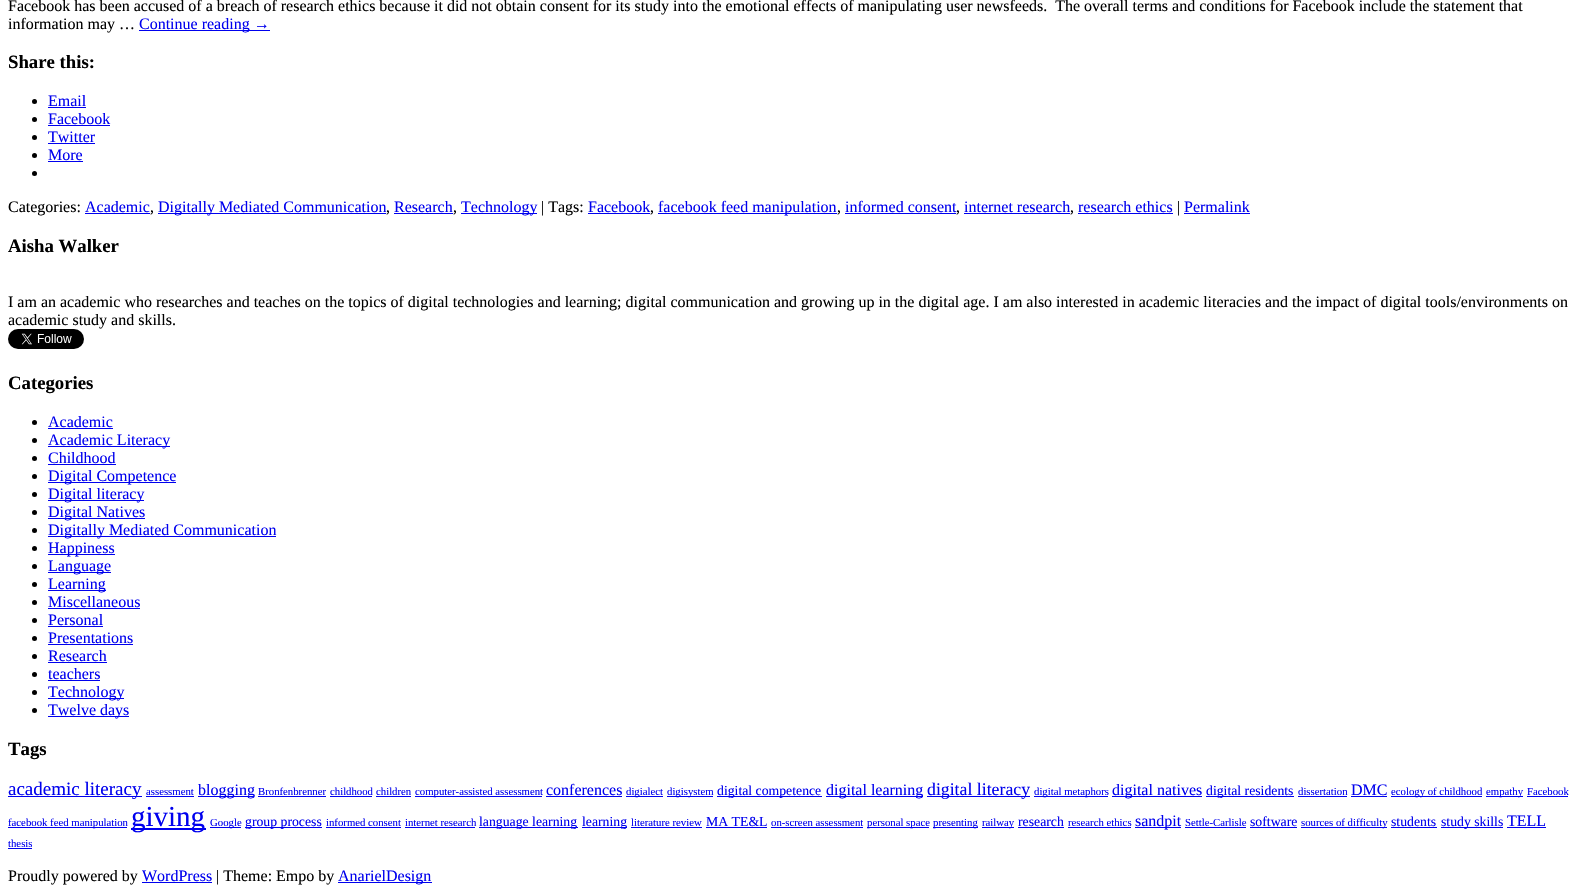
void draw(SkCanvas* canvas) {
	SkPaint paint;
	paint.setAntiAlias(true);
	canvas->clear(0xffffffff);
	SkFont f1(fontMgr->matchFamilyStyle("Liberation Serif", SkFontStyle::Normal()), 16);
	f1.setSubpixel(true);
	paint.setColor(0xff000000);
	canvas->drawString("Facebook has been accused of a breach of research ethics because it did not obtain consent for its study into the emotional effects of manipulating user newsfeeds.  The overall terms and conditions for Facebook include the statement that", 8, 11, f1, paint);
	canvas->drawString("information may …", 8, 29, f1, paint);
	paint.setColor(0xff0000ee);
	canvas->drawRect(SkRect::MakeXYWH(139, 30, 131, 1), paint);
	canvas->drawString("Continue reading →", 139, 29, f1, paint);
	SkFont f2(fontMgr->matchFamilyStyle("Liberation Serif", SkFontStyle::Bold()), 18.75);
	f2.setSubpixel(true);
	paint.setColor(0xff000000);
	canvas->drawString("Share this:", 8, 68, f2, paint);
	canvas->drawCircle(34.5, 101.5, 2.5, paint);
	paint.setColor(0xff0000ee);
	canvas->drawString("Email", 48, 106, f1, paint);
	canvas->drawRect(SkRect::MakeXYWH(48, 107, 38, 1), paint);
	paint.setColor(0xff000000);
	canvas->drawCircle(34.5, 119.5, 2.5, paint);
	paint.setColor(0xff0000ee);
	canvas->drawString("Facebook", 48, 124, f1, paint);
	canvas->drawRect(SkRect::MakeXYWH(48, 125, 62, 1), paint);
	paint.setColor(0xff000000);
	canvas->drawCircle(34.5, 137.5, 2.5, paint);
	paint.setColor(0xff0000ee);
	canvas->drawString("Twitter", 48, 142, f1, paint);
	canvas->drawRect(SkRect::MakeXYWH(48, 143, 47, 1), paint);
	paint.setColor(0xff000000);
	canvas->drawCircle(34.5, 155.5, 2.5, paint);
	paint.setColor(0xff0000ee);
	canvas->drawString("More", 48, 160, f1, paint);
	canvas->drawRect(SkRect::MakeXYWH(48, 161, 35, 1), paint);
	paint.setColor(0xff000000);
	canvas->drawCircle(34.5, 173.5, 2.5, paint);
	canvas->drawString("Categories:", 8, 212, f1, paint);
	paint.setColor(0xff0000ee);
	canvas->drawString("Academic", 85, 212, f1, paint);
	canvas->drawRect(SkRect::MakeXYWH(85, 213, 65, 1), paint);
	paint.setColor(0xff000000);
	canvas->drawString(",", 150, 212, f1, paint);
	paint.setColor(0xff0000ee);
	canvas->drawRect(SkRect::MakeXYWH(158, 213, 228, 1), paint);
	canvas->drawString("Digitally Mediated Communication", 158, 212, f1, paint);
	paint.setColor(0xff000000);
	canvas->drawString(",", 386, 212, f1, paint);
	paint.setColor(0xff0000ee);
	canvas->drawString("Research", 394, 212, f1, paint);
	canvas->drawRect(SkRect::MakeXYWH(394, 213, 59, 1), paint);
	paint.setColor(0xff000000);
	canvas->drawString(",", 453, 212, f1, paint);
	paint.setColor(0xff0000ee);
	canvas->drawRect(SkRect::MakeXYWH(461, 213, 76, 1), paint);
	canvas->drawString("Technology", 461, 212, f1, paint);
	paint.setColor(0xff000000);
	canvas->drawString("| Tags:", 541, 212, f1, paint);
	paint.setColor(0xff0000ee);
	canvas->drawString("Facebook", 588, 212, f1, paint);
	canvas->drawRect(SkRect::MakeXYWH(588, 213, 62, 1), paint);
	paint.setColor(0xff000000);
	canvas->drawString(",", 650, 212, f1, paint);
	paint.setColor(0xff0000ee);
	canvas->drawRect(SkRect::MakeXYWH(658, 213, 179, 1), paint);
	canvas->drawString("facebook feed manipulation", 658, 212, f1, paint);
	paint.setColor(0xff000000);
	canvas->drawString(",", 837, 212, f1, paint);
	paint.setColor(0xff0000ee);
	canvas->drawString("informed consent", 845, 212, f1, paint);
	canvas->drawRect(SkRect::MakeXYWH(845, 213, 111, 1), paint);
	paint.setColor(0xff000000);
	canvas->drawString(",", 956, 212, f1, paint);
	paint.setColor(0xff0000ee);
	canvas->drawString("internet research", 964, 212, f1, paint);
	canvas->drawRect(SkRect::MakeXYWH(964, 213, 106, 1), paint);
	paint.setColor(0xff000000);
	canvas->drawString(",", 1070, 212, f1, paint);
	paint.setColor(0xff0000ee);
	canvas->drawString("research ethics", 1078, 212, f1, paint);
	canvas->drawRect(SkRect::MakeXYWH(1078, 213, 95, 1), paint);
	paint.setColor(0xff000000);
	canvas->drawString("|", 1177, 212, f1, paint);
	paint.setColor(0xff0000ee);
	canvas->drawString("Permalink", 1184, 212, f1, paint);
	canvas->drawRect(SkRect::MakeXYWH(1184, 213, 66, 1), paint);
	paint.setColor(0xff000000);
	canvas->drawString("Aisha Walker", 8, 252, f2, paint);
	canvas->drawString("I am an academic who researches and teaches on the topics of digital technologies and learning; digital communication and growing up in the digital age. I am also interested in academic literacies and the impact of digital tools/environments on", 8, 307, f1, paint);
	canvas->drawString("academic study and skills.", 8, 325, f1, paint);
	canvas->drawImageRect(SkImages::DeferredFromEncodedData(SkData::MakeFromFileName("img1.png")), SkRect::MakeXYWH(8, 329, 76, 20), SkSamplingOptions());
	canvas->drawString("Categories", 8, 389, f2, paint);
	canvas->drawCircle(34.5, 422.5, 2.5, paint);
	paint.setColor(0xff0000ee);
	canvas->drawString("Academic", 48, 427, f1, paint);
	canvas->drawRect(SkRect::MakeXYWH(48, 428, 65, 1), paint);
	paint.setColor(0xff000000);
	canvas->drawCircle(34.5, 440.5, 2.5, paint);
	paint.setColor(0xff0000ee);
	canvas->drawRect(SkRect::MakeXYWH(48, 446, 122, 1), paint);
	canvas->drawString("Academic Literacy", 48, 445, f1, paint);
	paint.setColor(0xff000000);
	canvas->drawCircle(34.5, 458.5, 2.5, paint);
	paint.setColor(0xff0000ee);
	canvas->drawString("Childhood", 48, 463, f1, paint);
	canvas->drawRect(SkRect::MakeXYWH(48, 464, 68, 1), paint);
	paint.setColor(0xff000000);
	canvas->drawCircle(34.5, 476.5, 2.5, paint);
	paint.setColor(0xff0000ee);
	canvas->drawRect(SkRect::MakeXYWH(48, 482, 128, 1), paint);
	canvas->drawString("Digital Competence", 48, 481, f1, paint);
	paint.setColor(0xff000000);
	canvas->drawCircle(34.5, 494.5, 2.5, paint);
	paint.setColor(0xff0000ee);
	canvas->drawRect(SkRect::MakeXYWH(48, 500, 96, 1), paint);
	canvas->drawString("Digital literacy", 48, 499, f1, paint);
	paint.setColor(0xff000000);
	canvas->drawCircle(34.5, 512.5, 2.5, paint);
	paint.setColor(0xff0000ee);
	canvas->drawRect(SkRect::MakeXYWH(48, 518, 97, 1), paint);
	canvas->drawString("Digital Natives", 48, 517, f1, paint);
	paint.setColor(0xff000000);
	canvas->drawCircle(34.5, 530.5, 2.5, paint);
	paint.setColor(0xff0000ee);
	canvas->drawRect(SkRect::MakeXYWH(48, 536, 228, 1), paint);
	canvas->drawString("Digitally Mediated Communication", 48, 535, f1, paint);
	paint.setColor(0xff000000);
	canvas->drawCircle(34.5, 548.5, 2.5, paint);
	paint.setColor(0xff0000ee);
	canvas->drawRect(SkRect::MakeXYWH(48, 554, 67, 1), paint);
	canvas->drawString("Happiness", 48, 553, f1, paint);
	paint.setColor(0xff000000);
	canvas->drawCircle(34.5, 566.5, 2.5, paint);
	paint.setColor(0xff0000ee);
	canvas->drawRect(SkRect::MakeXYWH(48, 572, 63, 1), paint);
	canvas->drawString("Language", 48, 571, f1, paint);
	paint.setColor(0xff000000);
	canvas->drawCircle(34.5, 584.5, 2.5, paint);
	paint.setColor(0xff0000ee);
	canvas->drawRect(SkRect::MakeXYWH(48, 590, 58, 1), paint);
	canvas->drawString("Learning", 48, 589, f1, paint);
	paint.setColor(0xff000000);
	canvas->drawCircle(34.5, 602.5, 2.5, paint);
	paint.setColor(0xff0000ee);
	canvas->drawString("Miscellaneous", 48, 607, f1, paint);
	canvas->drawRect(SkRect::MakeXYWH(48, 608, 92, 1), paint);
	paint.setColor(0xff000000);
	canvas->drawCircle(34.5, 620.5, 2.5, paint);
	paint.setColor(0xff0000ee);
	canvas->drawString("Personal", 48, 625, f1, paint);
	canvas->drawRect(SkRect::MakeXYWH(48, 626, 55, 1), paint);
	paint.setColor(0xff000000);
	canvas->drawCircle(34.5, 638.5, 2.5, paint);
	paint.setColor(0xff0000ee);
	canvas->drawString("Presentations", 48, 643, f1, paint);
	canvas->drawRect(SkRect::MakeXYWH(48, 644, 85, 1), paint);
	paint.setColor(0xff000000);
	canvas->drawCircle(34.5, 656.5, 2.5, paint);
	paint.setColor(0xff0000ee);
	canvas->drawString("Research", 48, 661, f1, paint);
	canvas->drawRect(SkRect::MakeXYWH(48, 662, 59, 1), paint);
	paint.setColor(0xff000000);
	canvas->drawCircle(34.5, 674.5, 2.5, paint);
	paint.setColor(0xff0000ee);
	canvas->drawString("teachers", 48, 679, f1, paint);
	canvas->drawRect(SkRect::MakeXYWH(48, 680, 52, 1), paint);
	paint.setColor(0xff000000);
	canvas->drawCircle(34.5, 692.5, 2.5, paint);
	paint.setColor(0xff0000ee);
	canvas->drawRect(SkRect::MakeXYWH(48, 698, 76, 1), paint);
	canvas->drawString("Technology", 48, 697, f1, paint);
	paint.setColor(0xff000000);
	canvas->drawCircle(34.5, 710.5, 2.5, paint);
	paint.setColor(0xff0000ee);
	canvas->drawRect(SkRect::MakeXYWH(48, 716, 81, 1), paint);
	canvas->drawString("Twelve days", 48, 715, f1, paint);
	paint.setColor(0xff000000);
	canvas->drawString("Tags", 8, 755, f2, paint);
	paint.setColor(0xff0000ee);
	canvas->drawRect(SkRect::MakeXYWH(8, 796, 134, 1), paint);
	SkFont f3(fontMgr->matchFamilyStyle("Liberation Serif", SkFontStyle::Normal()), 19);
	f3.setSubpixel(true);
	canvas->drawString("academic literacy", 8, 795, f3, paint);
	SkFont f4(fontMgr->matchFamilyStyle("Liberation Serif", SkFontStyle::Normal()), 10.75);
	f4.setSubpixel(true);
	canvas->drawString("assessment", 146, 795, f4, paint);
	canvas->drawRect(SkRect::MakeXYWH(146, 796, 48, 1), paint);
	canvas->drawRect(SkRect::MakeXYWH(198, 796, 56, 1), paint);
	canvas->drawString("blogging", 198, 795, f1, paint);
	canvas->drawString("Bronfenbrenner", 258, 795, f4, paint);
	canvas->drawRect(SkRect::MakeXYWH(258, 796, 68, 1), paint);
	canvas->drawString("childhood", 330, 795, f4, paint);
	canvas->drawRect(SkRect::MakeXYWH(330, 796, 42, 1), paint);
	canvas->drawString("children", 376, 795, f4, paint);
	canvas->drawRect(SkRect::MakeXYWH(376, 796, 35, 1), paint);
	canvas->drawRect(SkRect::MakeXYWH(415, 796, 127, 1), paint);
	canvas->drawString("computer-assisted assessment", 415, 795, f4, paint);
	canvas->drawString("conferences", 546, 795, f1, paint);
	canvas->drawRect(SkRect::MakeXYWH(546, 796, 76, 1), paint);
	canvas->drawRect(SkRect::MakeXYWH(626, 796, 37, 1), paint);
	canvas->drawString("digialect", 626, 795, f4, paint);
	canvas->drawRect(SkRect::MakeXYWH(667, 796, 46, 1), paint);
	canvas->drawString("digisystem", 667, 795, f4, paint);
	canvas->drawRect(SkRect::MakeXYWH(717, 796, 105, 1), paint);
	SkFont f5(fontMgr->matchFamilyStyle("Liberation Serif", SkFontStyle::Normal()), 13.75);
	f5.setSubpixel(true);
	canvas->drawString("digital competence", 717, 795, f5, paint);
	canvas->drawRect(SkRect::MakeXYWH(826, 796, 97, 1), paint);
	canvas->drawString("digital learning", 826, 795, f1, paint);
	canvas->drawRect(SkRect::MakeXYWH(927, 796, 103, 1), paint);
	SkFont f6(fontMgr->matchFamilyStyle("Liberation Serif", SkFontStyle::Normal()), 17.75);
	f6.setSubpixel(true);
	canvas->drawString("digital literacy", 927, 795, f6, paint);
	canvas->drawRect(SkRect::MakeXYWH(1034, 796, 74, 1), paint);
	canvas->drawString("digital metaphors", 1034, 795, f4, paint);
	canvas->drawRect(SkRect::MakeXYWH(1112, 796, 90, 1), paint);
	canvas->drawString("digital natives", 1112, 795, f1, paint);
	canvas->drawRect(SkRect::MakeXYWH(1206, 796, 88, 1), paint);
	canvas->drawString("digital residents", 1206, 795, f5, paint);
	canvas->drawString("dissertation", 1298, 795, f4, paint);
	canvas->drawRect(SkRect::MakeXYWH(1298, 796, 49, 1), paint);
	canvas->drawString("DMC", 1351, 795, f1, paint);
	canvas->drawRect(SkRect::MakeXYWH(1351, 796, 36, 1), paint);
	canvas->drawRect(SkRect::MakeXYWH(1391, 796, 91, 1), paint);
	canvas->drawString("ecology of childhood", 1391, 795, f4, paint);
	canvas->drawRect(SkRect::MakeXYWH(1486, 796, 37, 1), paint);
	canvas->drawString("empathy", 1486, 795, f4, paint);
	canvas->drawString("Facebook", 1527, 795, f4, paint);
	canvas->drawRect(SkRect::MakeXYWH(1527, 796, 41, 1), paint);
	canvas->drawRect(SkRect::MakeXYWH(8, 827, 119, 1), paint);
	canvas->drawString("facebook feed manipulation", 8, 826, f4, paint);
	canvas->drawRect(SkRect::MakeXYWH(131, 828, 75, 2), paint);
	SkFont f7(fontMgr->matchFamilyStyle("Liberation Serif", SkFontStyle::Normal()), 29);
	f7.setSubpixel(true);
	canvas->drawString("giving", 131, 826, f7, paint);
	canvas->drawRect(SkRect::MakeXYWH(210, 827, 31, 1), paint);
	canvas->drawString("Google", 210, 826, f4, paint);
	canvas->drawRect(SkRect::MakeXYWH(245, 827, 77, 1), paint);
	canvas->drawString("group process", 245, 826, f5, paint);
	canvas->drawString("informed consent", 326, 826, f4, paint);
	canvas->drawRect(SkRect::MakeXYWH(326, 827, 75, 1), paint);
	canvas->drawString("internet research", 405, 826, f4, paint);
	canvas->drawRect(SkRect::MakeXYWH(405, 827, 70, 1), paint);
	canvas->drawRect(SkRect::MakeXYWH(479, 827, 99, 1), paint);
	canvas->drawString("language learning", 479, 826, f5, paint);
	canvas->drawRect(SkRect::MakeXYWH(582, 827, 45, 1), paint);
	canvas->drawString("learning", 582, 826, f5, paint);
	canvas->drawString("literature review", 631, 826, f4, paint);
	canvas->drawRect(SkRect::MakeXYWH(631, 827, 71, 1), paint);
	canvas->drawString("MA TE&L", 706, 826, f5, paint);
	canvas->drawRect(SkRect::MakeXYWH(706, 827, 61, 1), paint);
	canvas->drawString("on-screen assessment", 771, 826, f4, paint);
	canvas->drawRect(SkRect::MakeXYWH(771, 827, 92, 1), paint);
	canvas->drawRect(SkRect::MakeXYWH(867, 827, 62, 1), paint);
	canvas->drawString("personal space", 867, 826, f4, paint);
	canvas->drawRect(SkRect::MakeXYWH(933, 827, 45, 1), paint);
	canvas->drawString("presenting", 933, 826, f4, paint);
	canvas->drawRect(SkRect::MakeXYWH(982, 827, 32, 1), paint);
	canvas->drawString("railway", 982, 826, f4, paint);
	canvas->drawString("research", 1018, 826, f5, paint);
	canvas->drawRect(SkRect::MakeXYWH(1018, 827, 46, 1), paint);
	canvas->drawString("research ethics", 1068, 826, f4, paint);
	canvas->drawRect(SkRect::MakeXYWH(1068, 827, 63, 1), paint);
	canvas->drawRect(SkRect::MakeXYWH(1135, 827, 46, 1), paint);
	canvas->drawString("sandpit", 1135, 826, f1, paint);
	canvas->drawString("Settle-Carlisle", 1185, 826, f4, paint);
	canvas->drawRect(SkRect::MakeXYWH(1185, 827, 61, 1), paint);
	canvas->drawString("software", 1250, 826, f5, paint);
	canvas->drawRect(SkRect::MakeXYWH(1250, 827, 47, 1), paint);
	canvas->drawRect(SkRect::MakeXYWH(1301, 827, 86, 1), paint);
	canvas->drawString("sources of difficulty", 1301, 826, f4, paint);
	canvas->drawString("students", 1391, 826, f5, paint);
	canvas->drawRect(SkRect::MakeXYWH(1391, 827, 46, 1), paint);
	canvas->drawRect(SkRect::MakeXYWH(1441, 827, 62, 1), paint);
	canvas->drawString("study skills", 1441, 826, f5, paint);
	canvas->drawString("TELL", 1507, 826, f1, paint);
	canvas->drawRect(SkRect::MakeXYWH(1507, 827, 39, 1), paint);
	canvas->drawString("thesis", 8, 847, f4, paint);
	canvas->drawRect(SkRect::MakeXYWH(8, 848, 24, 1), paint);
	paint.setColor(0xff000000);
	canvas->drawString("Proudly powered by", 8, 881, f1, paint);
	paint.setColor(0xff0000ee);
	canvas->drawString("WordPress", 142, 881, f1, paint);
	canvas->drawRect(SkRect::MakeXYWH(142, 882, 70, 1), paint);
	paint.setColor(0xff000000);
	canvas->drawString("| Theme: Empo by", 216, 881, f1, paint);
	paint.setColor(0xff0000ee);
	canvas->drawRect(SkRect::MakeXYWH(338, 882, 94, 1), paint);
	canvas->drawString("AnarielDesign", 338, 881, f1, paint);
}
